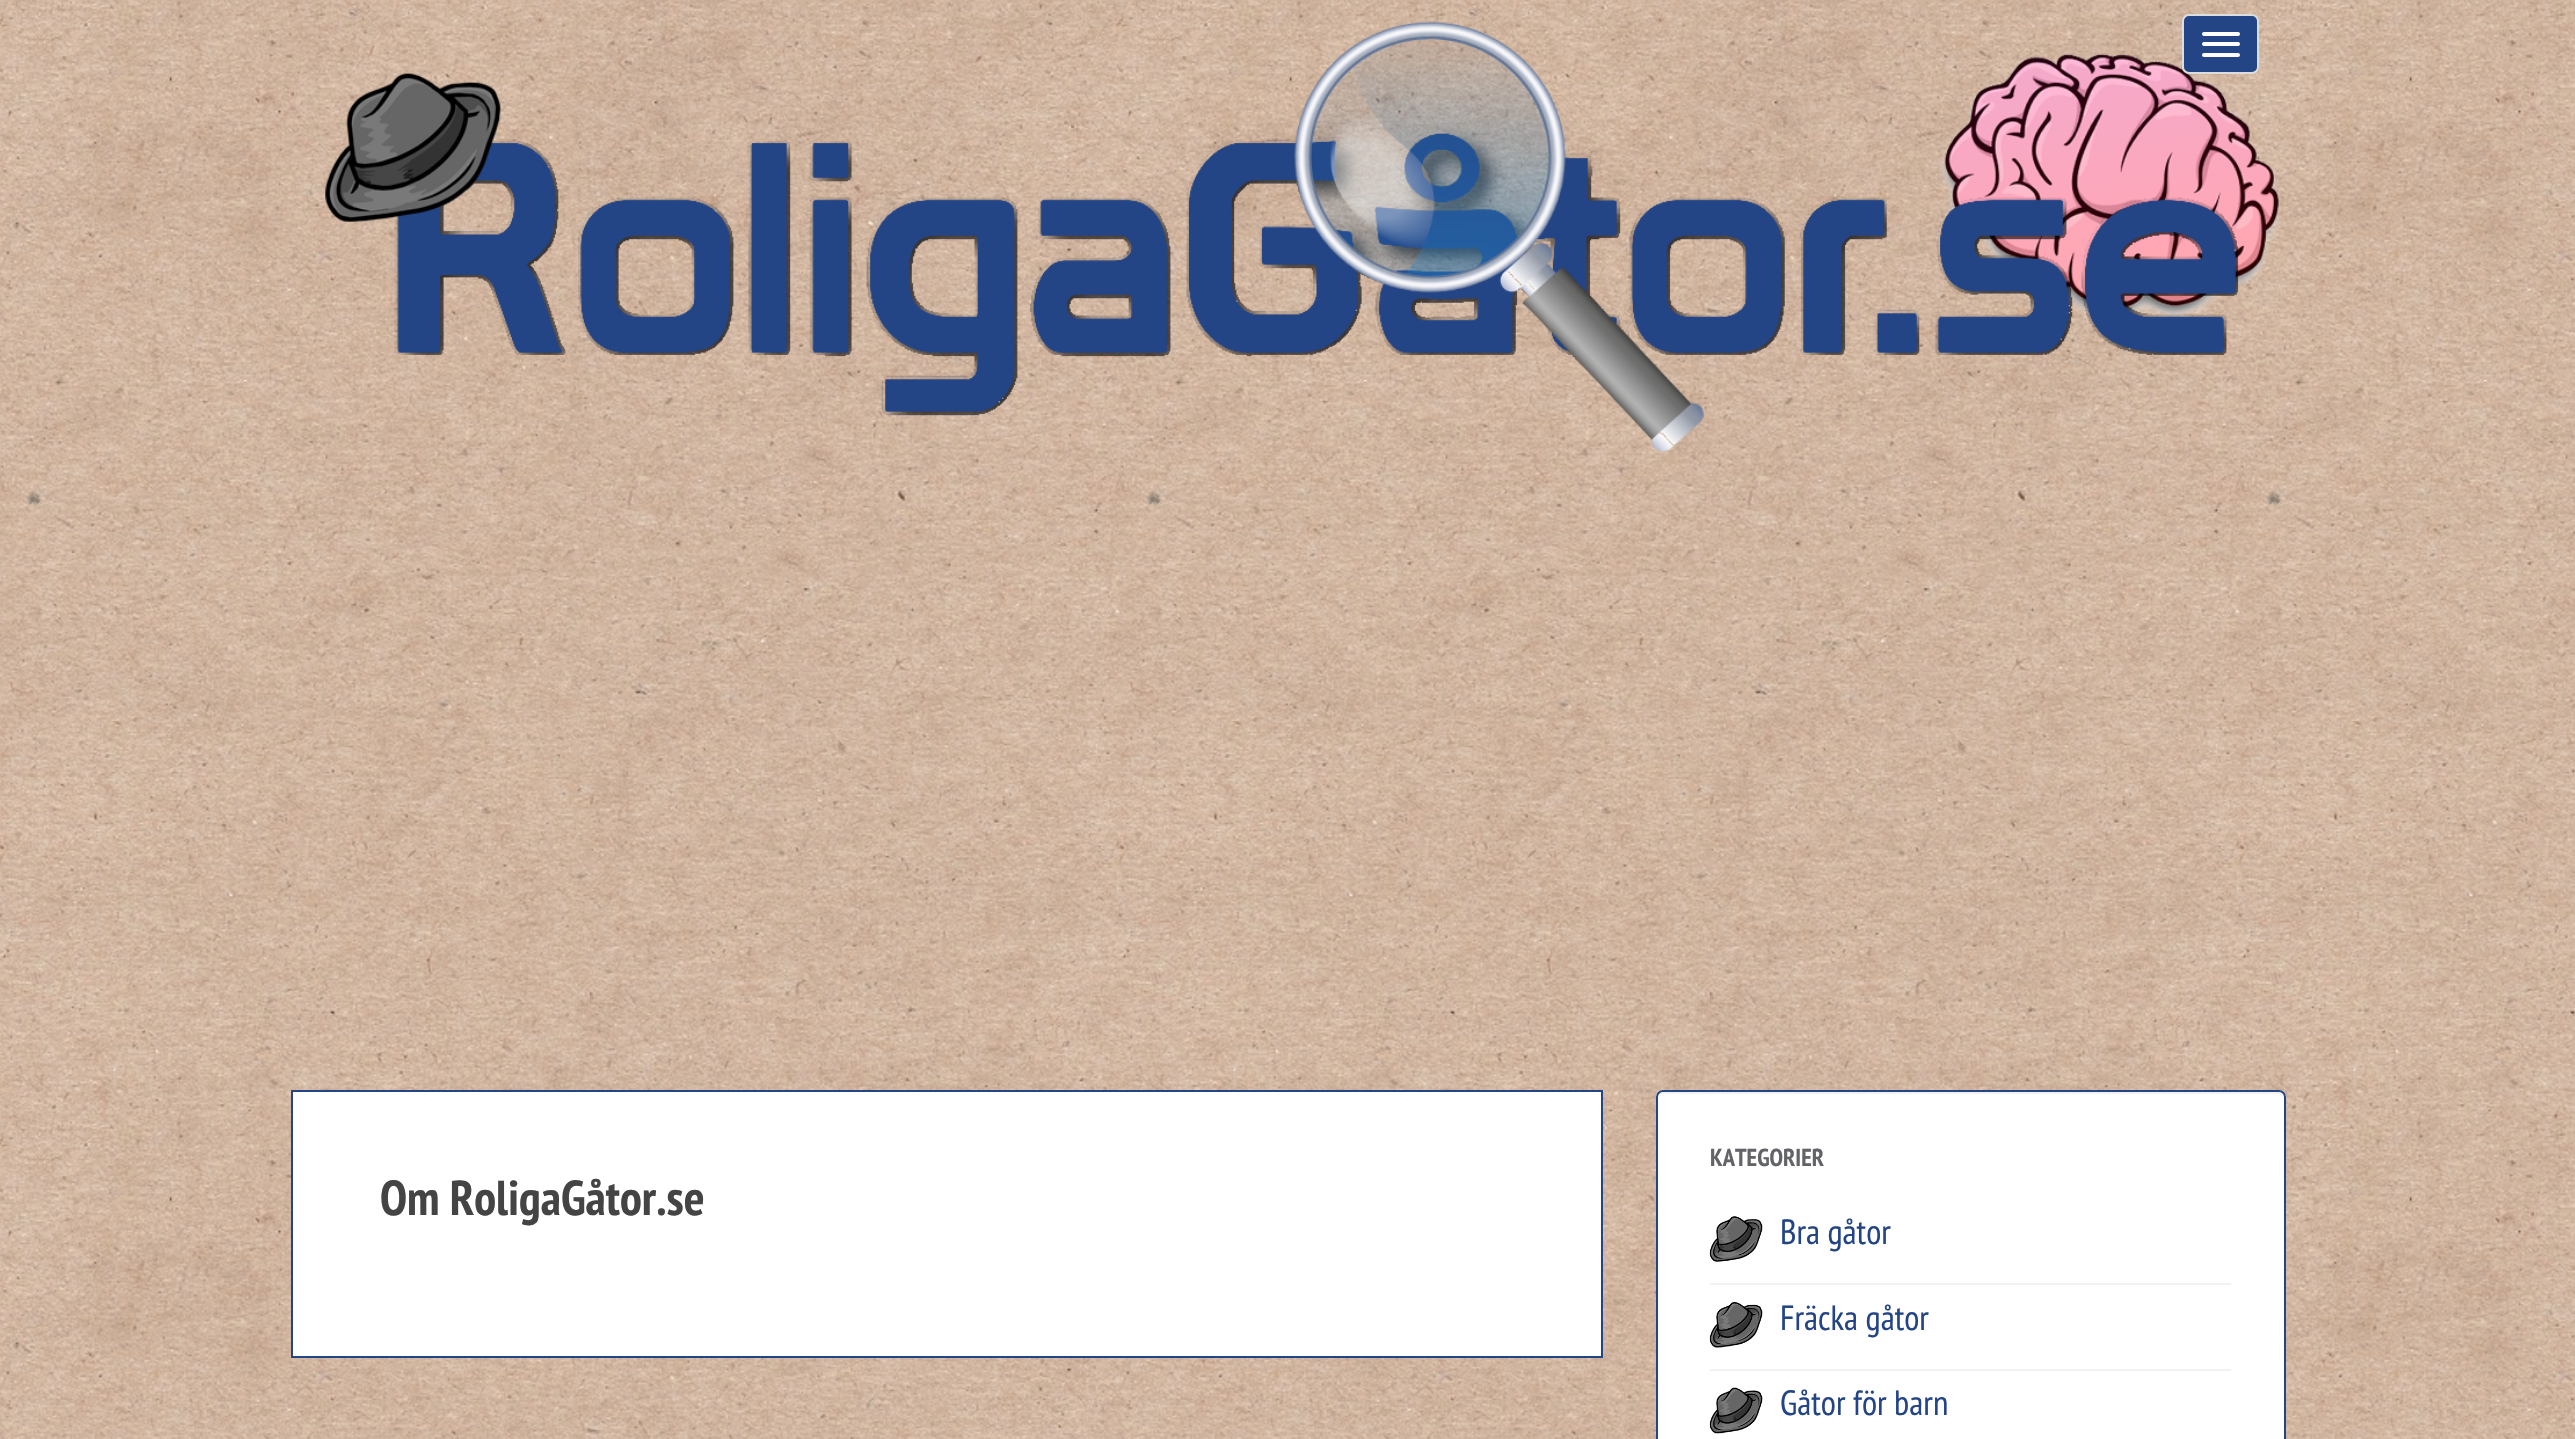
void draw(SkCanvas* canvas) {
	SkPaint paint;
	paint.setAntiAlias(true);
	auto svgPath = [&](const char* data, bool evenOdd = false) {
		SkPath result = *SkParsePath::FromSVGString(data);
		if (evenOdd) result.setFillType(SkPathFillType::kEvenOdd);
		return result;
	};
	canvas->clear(0xffffffff);
	canvas->drawImageRect(SkImages::DeferredFromEncodedData(SkData::MakeFromFileName("img1.png")), SkRect::MakeXYWH(0, 0, 2575, 1439), SkSamplingOptions());
	canvas->drawImageRect(SkImages::DeferredFromEncodedData(SkData::MakeFromFileName("img2.png")), SkRect::MakeXYWH(325, 21, 1956, 431), SkSamplingOptions());
	paint.setColor(0xff234485);
	canvas->drawRoundRect(SkRect::MakeXYWH(2183, 15, 75, 58), 6, 6, paint);
	paint.setStroke(true);
	paint.setStrokeWidth(2);
	paint.setColor(0xffdddddd);
	canvas->drawRoundRect(SkRect::MakeXYWH(2183, 15, 75, 58), 6, 6, paint);
	paint.setStroke(false);
	paint.setColor(0xffffffff);
	canvas->drawRoundRect(SkRect::MakeXYWH(2202, 32, 38, 4), 2, 2, paint);
	canvas->drawRoundRect(SkRect::MakeXYWH(2202, 42, 38, 4), 2, 2, paint);
	canvas->drawRoundRect(SkRect::MakeXYWH(2202, 53, 38, 4), 2, 2, paint);
	canvas->drawRect(SkRect::MakeXYWH(292, 1091, 1310, 266), paint);
	paint.setStroke(true);
	paint.setColor(0xff234485);
	canvas->drawRect(SkRect::MakeXYWH(292, 1091, 1310, 266), paint);
	SkFont f1(fontMgr->matchFamilyStyle("PT Sans Narrow", SkFontStyle::Bold()), 49);
	f1.setSubpixel(true);
	paint.setStroke(false);
	paint.setColor(0xff444444);
	canvas->drawString("Om RoligaGåtor.se", 380, 1215, f1, paint);
	paint.setColor(0xffffffff);
	canvas->drawRoundRect(SkRect::MakeXYWH(1656, 1090, 630, 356), 7, 7, paint);
	paint.setColor(0xfff2f2f2);
	canvas->drawPath(svgPath("M1662 1094H2278C2281 1094 2284 1096 2284 1099C2284 1096 2283 1092 2279 1092H1662C1658 1092 1657 1096 1657 1099C1657 1096 1660 1094 1662 1094Z"), paint);
	paint.setStroke(true);
	paint.setColor(0xff234485);
	canvas->drawRoundRect(SkRect::MakeXYWH(1657, 1091, 628, 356), 6, 6, paint);
	SkFont f2(fontMgr->matchFamilyStyle("PT Sans Narrow", SkFontStyle::Bold()), 24.5);
	f2.setSubpixel(true);
	paint.setStroke(false);
	paint.setColor(0xff636467);
	canvas->drawString("KATEGORIER", 1710, 1166, f2, paint);
	paint.setColor(0xfff2f2f2);
	canvas->drawRect(SkRect::MakeXYWH(1710, 1283, 521, 2), paint);
	canvas->drawImageRect(SkImages::DeferredFromEncodedData(SkData::MakeFromFileName("img3.png")), SkRect::MakeXYWH(1709, 1216, 54, 46), SkSamplingOptions());
	SkFont f3(fontMgr->matchFamilyStyle("PT Sans Narrow", SkFontStyle::Normal()), 35);
	f3.setSubpixel(true);
	paint.setColor(0xff234485);
	canvas->drawString("Bra gåtor", 1780, 1244, f3, paint);
	paint.setColor(0xfff2f2f2);
	canvas->drawRect(SkRect::MakeXYWH(1710, 1369, 521, 2), paint);
	canvas->drawImageRect(SkImages::DeferredFromEncodedData(SkData::MakeFromFileName("img4.png")), SkRect::MakeXYWH(1709, 1302, 54, 46), SkSamplingOptions());
	paint.setColor(0xff234485);
	canvas->drawString("Fräcka gåtor", 1780, 1330, f3, paint);
	canvas->drawImageRect(SkImages::DeferredFromEncodedData(SkData::MakeFromFileName("img5.png")), SkRect::MakeXYWH(1709, 1387, 54, 47), SkSamplingOptions());
	canvas->drawString("Gåtor för barn", 1780, 1415, f3, paint);
}
